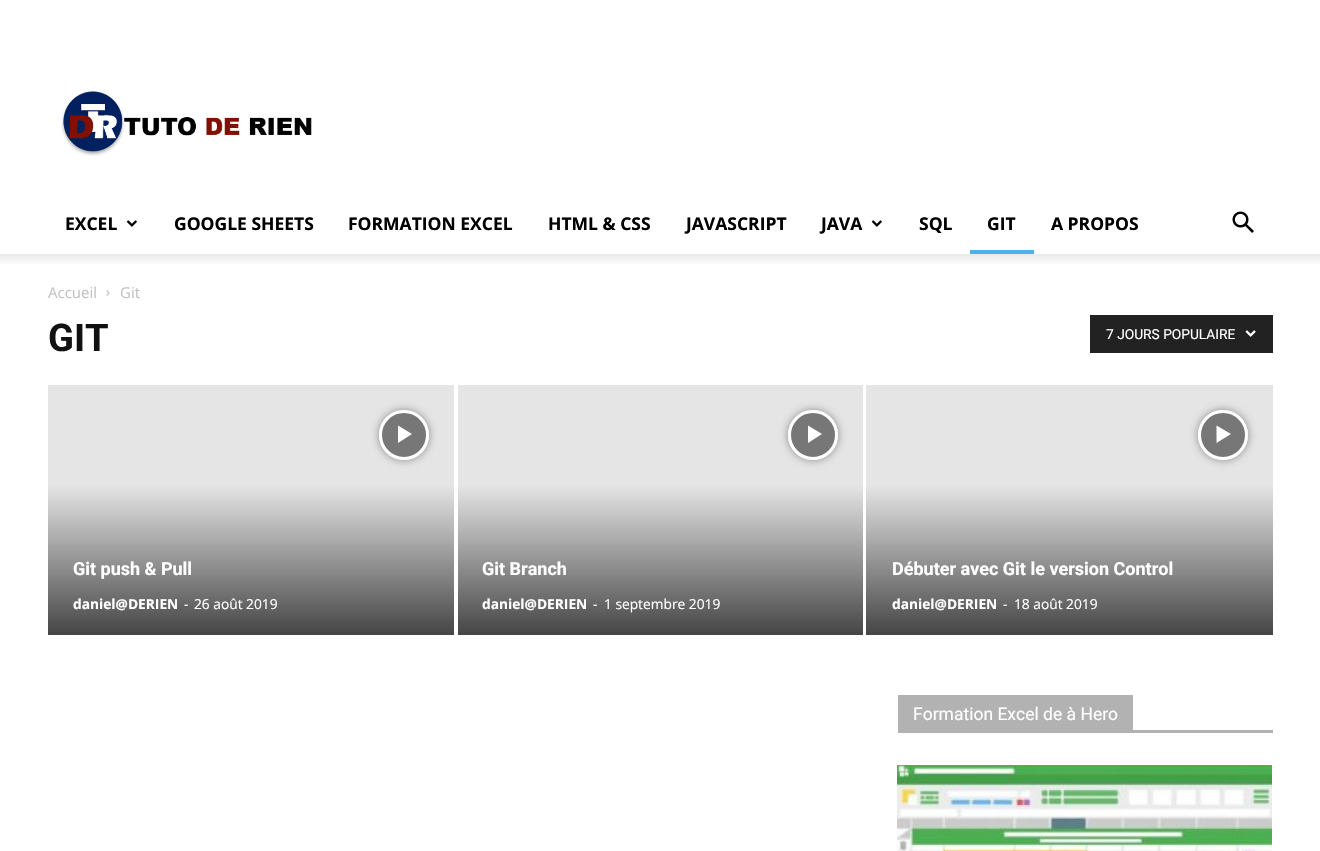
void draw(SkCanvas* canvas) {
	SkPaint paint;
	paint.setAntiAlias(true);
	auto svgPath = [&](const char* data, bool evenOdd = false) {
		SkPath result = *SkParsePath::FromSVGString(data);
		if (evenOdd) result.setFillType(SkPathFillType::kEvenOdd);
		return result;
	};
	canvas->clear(0xffffffff);
	canvas->drawImageRect(SkImages::DeferredFromEncodedData(SkData::MakeFromFileName("img1.png")), SkRect::MakeXYWH(61, 91, 251, 65), SkSamplingOptions());
	SkFont f1(fontMgr->matchFamilyStyle("Open Sans", SkFontStyle::Bold()), 17.5);
	f1.setSubpixel(true);
	paint.setColor(0xff000000);
	canvas->drawString("EXCEL", 65, 230, f1, paint);
	canvas->drawImageRect(SkImages::DeferredFromEncodedData(SkData::MakeFromFileName("img2.png")), SkRect::MakeXYWH(126, 220, 11, 7), SkSamplingOptions());
	canvas->drawString("GOOGLE SHEETS", 174, 230, f1, paint);
	canvas->drawString("FORMATION EXCEL", 348, 230, f1, paint);
	canvas->drawString("HTML & CSS", 548, 230, f1, paint);
	canvas->drawString("JAVASCRIPT", 686, 230, f1, paint);
	canvas->drawString("JAVA", 821, 230, f1, paint);
	canvas->drawImageRect(SkImages::DeferredFromEncodedData(SkData::MakeFromFileName("img2.png")), SkRect::MakeXYWH(871, 220, 11, 7), SkSamplingOptions());
	canvas->drawString("SQL", 919, 230, f1, paint);
	canvas->drawString("GIT", 987, 230, f1, paint);
	paint.setColor(0xff4db2ec);
	canvas->drawRect(SkRect::MakeXYWH(970, 250, 64, 4), paint);
	paint.setColor(0xff000000);
	canvas->drawString("A PROPOS", 1051, 230, f1, paint);
	canvas->drawImageRect(SkImages::DeferredFromEncodedData(SkData::MakeFromFileName("img3.png")), SkRect::MakeXYWH(1232, 211, 22, 22), SkSamplingOptions());
	canvas->drawImageRect(SkImages::DeferredFromEncodedData(SkData::MakeFromFileName("img4.png")), SkRect::MakeXYWH(0, 254, 1320, 10), SkSamplingOptions());
	SkFont f2(fontMgr->matchFamilyStyle("Open Sans", SkFontStyle::Normal()), 15);
	f2.setSubpixel(true);
	paint.setColor(0xffc3c3c3);
	canvas->drawString("Accueil", 48, 298, f2, paint);
	canvas->drawImageRect(SkImages::DeferredFromEncodedData(SkData::MakeFromFileName("img5.png")), SkRect::MakeXYWH(106, 290, 4, 6), SkSamplingOptions());
	canvas->drawString("Git", 120, 298, f2, paint);
	SkFont f3(fontMgr->matchFamilyStyle("Roboto", SkFontStyle::Bold()), 38);
	f3.setSubpixel(true);
	paint.setColor(0xff111111);
	canvas->drawString("GIT", 48, 351, f3, paint);
	paint.setColor(0xff222222);
	canvas->drawRect(SkRect::MakeXYWH(1090, 315, 183, 38), paint);
	SkFont f4(fontMgr->matchFamilyStyle("Roboto", SkFontStyle::Normal()), 13.75);
	f4.setSubpixel(true);
	paint.setColor(0xffffffff);
	canvas->drawString("7 JOURS POPULAIRE", 1106, 339, f4, paint);
	canvas->drawImageRect(SkImages::DeferredFromEncodedData(SkData::MakeFromFileName("img6.png")), SkRect::MakeXYWH(1245, 330, 11, 7), SkSamplingOptions());
	{
		const SkColor colors[] = {0xffe5e5e5, 0xff454545};
		const float stops[] = {0.4, 1};
		const SkPoint ends[] = {{251, 385}, {251, 635}};
		paint.setShader(SkGradientShader::MakeLinear(ends, colors, stops, 2, SkTileMode::kClamp));
		paint.setAlpha(255);
	}
	canvas->drawRect(SkRect::MakeXYWH(48, 385, 406, 250), paint);
	canvas->save();
	canvas->clipPath(svgPath("M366 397H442V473H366ZM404 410C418 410 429 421 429 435C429 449 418 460 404 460C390 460 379 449 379 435C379 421 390 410 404 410Z", true), true);
	paint.setShader(nullptr);
	paint.setColor(0x66000000);
	paint.setMaskFilter(SkMaskFilter::MakeBlur(kNormal_SkBlurStyle, 4));
	canvas->drawRoundRect(SkRect::MakeXYWH(379, 410, 50, 50), 25, 25, paint);
	paint.setMaskFilter(nullptr);
	canvas->restore();
	paint.setColor(0x7a000000);
	canvas->drawCircle(404, 435, 23.5, paint);
	paint.setStroke(true);
	paint.setStrokeWidth(3);
	paint.setColor(0xffffffff);
	canvas->drawCircle(404, 435, 23.5, paint);
	paint.setStroke(false);
	canvas->drawPath(svgPath("M398 425.5V443L412 434Z"), paint);
	SkFont f5(fontMgr->matchFamilyStyle("Roboto", SkFontStyle::Bold()), 18);
	f5.setSubpixel(true);
	canvas->drawString("Git push & Pull", 73, 575, f5, paint);
	SkFont f6(fontMgr->matchFamilyStyle("Open Sans", SkFontStyle::Bold()), 13.75);
	f6.setSubpixel(true);
	canvas->drawString("daniel@DERIEN", 73, 609, f6, paint);
	SkFont f7(fontMgr->matchFamilyStyle("Open Sans", SkFontStyle::Normal()), 13.75);
	f7.setSubpixel(true);
	canvas->drawString("-", 184, 609, f7, paint);
	canvas->drawString("26 août 2019", 194, 609, f7, paint);
	{
		const SkColor colors[] = {0xffe5e5e5, 0xff454545};
		const float stops[] = {0.4, 1};
		const SkPoint ends[] = {{660, 385}, {660, 635}};
		paint.setShader(SkGradientShader::MakeLinear(ends, colors, stops, 2, SkTileMode::kClamp));
		paint.setAlpha(255);
	}
	canvas->drawRect(SkRect::MakeXYWH(458, 385, 405, 250), paint);
	canvas->save();
	canvas->clipPath(svgPath("M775 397H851V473H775ZM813 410C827 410 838 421 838 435C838 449 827 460 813 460C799 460 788 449 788 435C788 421 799 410 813 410Z", true), true);
	paint.setShader(nullptr);
	paint.setColor(0x66000000);
	paint.setMaskFilter(SkMaskFilter::MakeBlur(kNormal_SkBlurStyle, 4));
	canvas->drawRoundRect(SkRect::MakeXYWH(788, 410, 50, 50), 25, 25, paint);
	paint.setMaskFilter(nullptr);
	canvas->restore();
	paint.setColor(0x7a000000);
	canvas->drawCircle(813, 435, 23.5, paint);
	paint.setStroke(true);
	paint.setColor(0xffffffff);
	canvas->drawCircle(813, 435, 23.5, paint);
	paint.setStroke(false);
	canvas->drawPath(svgPath("M808 425.5V443L822 434Z"), paint);
	canvas->drawString("Git Branch", 482, 575, f5, paint);
	canvas->drawString("daniel@DERIEN", 482, 609, f6, paint);
	canvas->drawString("-", 593, 609, f7, paint);
	canvas->drawString("1 septembre 2019", 604, 609, f7, paint);
	{
		const SkColor colors[] = {0xffe5e5e5, 0xff454545};
		const float stops[] = {0.4, 1};
		const SkPoint ends[] = {{1069, 385}, {1069, 635}};
		paint.setShader(SkGradientShader::MakeLinear(ends, colors, stops, 2, SkTileMode::kClamp));
		paint.setAlpha(255);
	}
	canvas->drawRect(SkRect::MakeXYWH(866, 385, 407, 250), paint);
	canvas->save();
	canvas->clipPath(svgPath("M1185 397H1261V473H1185ZM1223 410C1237 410 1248 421 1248 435C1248 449 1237 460 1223 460C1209 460 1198 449 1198 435C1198 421 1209 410 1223 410Z", true), true);
	paint.setShader(nullptr);
	paint.setColor(0x66000000);
	paint.setMaskFilter(SkMaskFilter::MakeBlur(kNormal_SkBlurStyle, 4));
	canvas->drawRoundRect(SkRect::MakeXYWH(1198, 410, 50, 50), 25, 25, paint);
	paint.setMaskFilter(nullptr);
	canvas->restore();
	paint.setColor(0x7a000000);
	canvas->drawCircle(1223, 435, 23.5, paint);
	paint.setStroke(true);
	paint.setColor(0xffffffff);
	canvas->drawCircle(1223, 435, 23.5, paint);
	paint.setStroke(false);
	canvas->drawPath(svgPath("M1216.5 425.5V443L1231 434Z"), paint);
	canvas->drawString("Débuter avec Git le version Control", 892, 575, f5, paint);
	canvas->drawString("daniel@DERIEN", 892, 609, f6, paint);
	canvas->drawString("-", 1003, 609, f7, paint);
	canvas->drawString("18 août 2019", 1014, 609, f7, paint);
	paint.setColor(0xffb2b2b2);
	canvas->drawRect(SkRect::MakeXYWH(898, 730, 375, 3), paint);
	canvas->drawRect(SkRect::MakeXYWH(898, 695, 235, 35), paint);
	SkFont f8(fontMgr->matchFamilyStyle("Roboto", SkFontStyle::Normal()), 17.5);
	f8.setSubpixel(true);
	paint.setColor(0xffffffff);
	canvas->drawString("Formation Excel de à Hero", 913, 720, f8, paint);
	canvas->drawImageRect(SkImages::DeferredFromEncodedData(SkData::MakeFromFileName("img7.png")), SkRect::MakeXYWH(897, 765, 375, 86), SkSamplingOptions());
}
